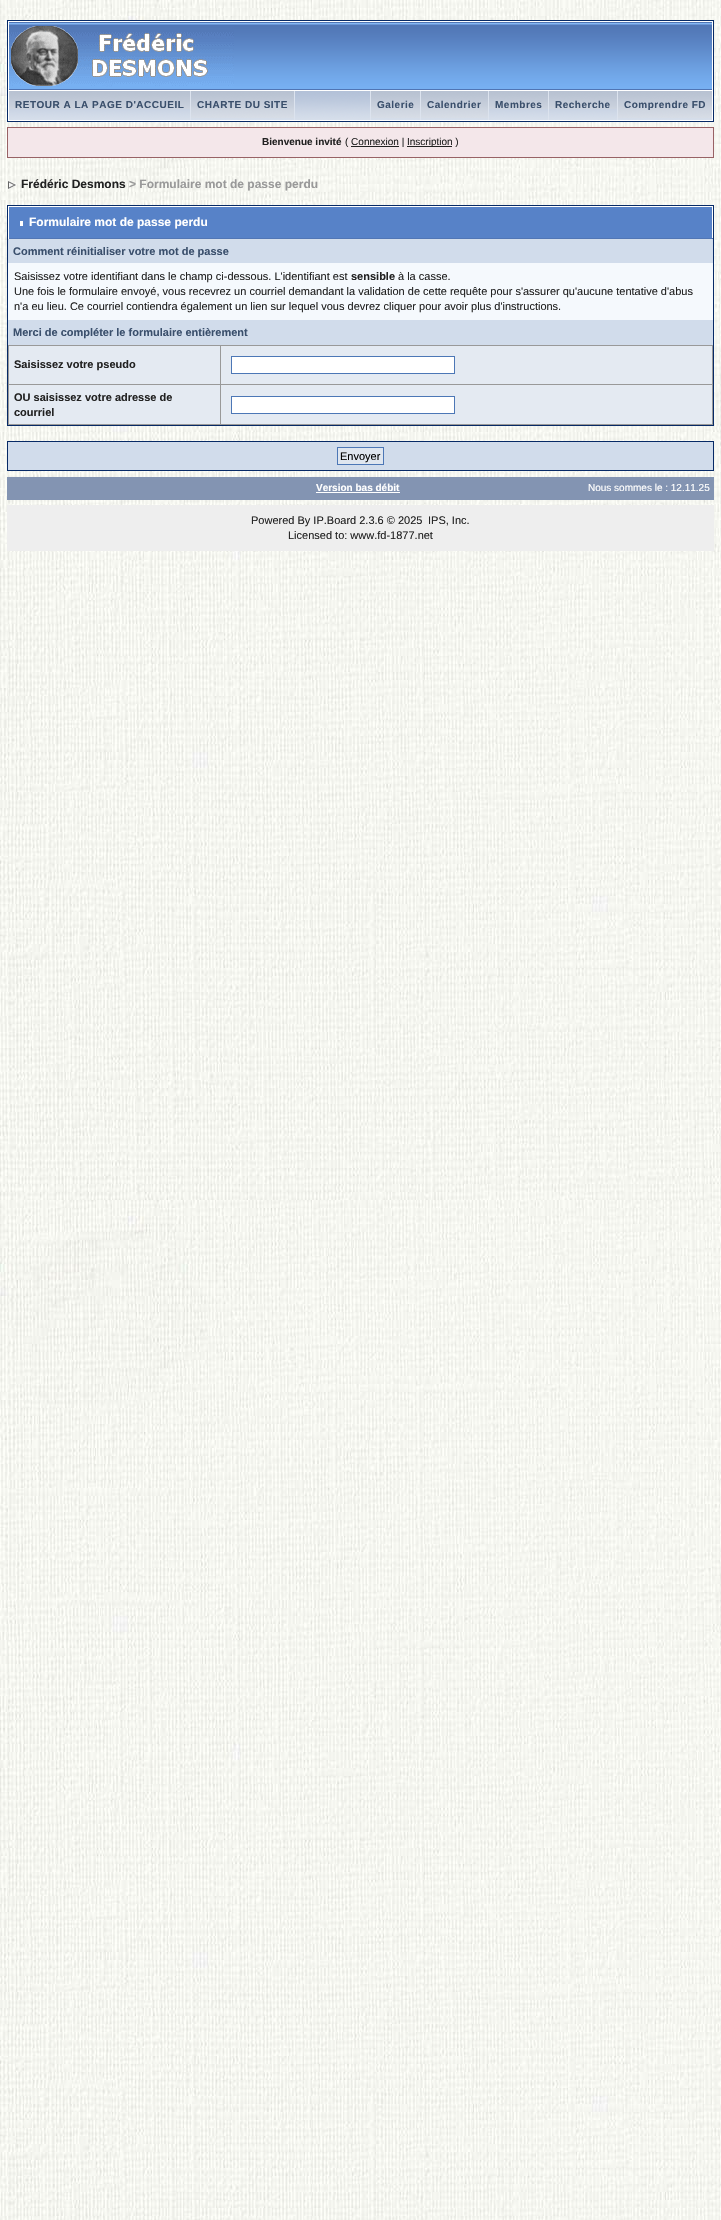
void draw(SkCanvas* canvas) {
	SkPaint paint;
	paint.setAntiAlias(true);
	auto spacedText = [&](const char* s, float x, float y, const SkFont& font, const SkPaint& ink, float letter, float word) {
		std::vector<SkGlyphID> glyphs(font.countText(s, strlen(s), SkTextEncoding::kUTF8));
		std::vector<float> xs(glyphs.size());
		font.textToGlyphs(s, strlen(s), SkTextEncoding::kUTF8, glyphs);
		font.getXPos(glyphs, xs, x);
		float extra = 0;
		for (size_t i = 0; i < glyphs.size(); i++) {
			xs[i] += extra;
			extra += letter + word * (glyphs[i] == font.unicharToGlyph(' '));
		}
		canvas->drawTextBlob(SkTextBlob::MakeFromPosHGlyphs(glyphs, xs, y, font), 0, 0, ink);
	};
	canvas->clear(0xffffffff);
	canvas->drawImageRect(SkImages::DeferredFromEncodedData(SkData::MakeFromFileName("img1.png")), SkRect::MakeXYWH(0, 0, 721, 2220), SkSamplingOptions());
	paint.setStroke(true);
	paint.setStrokeWidth(1);
	paint.setColor(0xff072a66);
	canvas->drawRect(SkRect::MakeXYWH(7.5, 20.5, 706, 101), paint);
	canvas->drawImageRect(SkImages::DeferredFromEncodedData(SkData::MakeFromFileName("img2.png")), SkRect::MakeXYWH(9, 22, 703, 68), SkSamplingOptions());
	paint.setColor(0xffffffff);
	canvas->drawRect(SkRect::MakeXYWH(8.5, 21.5, 704, 69), paint);
	canvas->drawImageRect(SkImages::DeferredFromEncodedData(SkData::MakeFromFileName("img3.png")), SkRect::MakeXYWH(9, 26, 225, 61), SkSamplingOptions());
	canvas->drawImageRect(SkImages::DeferredFromEncodedData(SkData::MakeFromFileName("img4.png")), SkRect::MakeXYWH(9, 91, 703, 29), SkSamplingOptions());
	paint.setStroke(false);
	canvas->drawRect(SkRect::MakeXYWH(712, 91, 1, 30), paint);
	canvas->drawRect(SkRect::MakeXYWH(8, 120, 705, 1), paint);
	canvas->drawRect(SkRect::MakeXYWH(8, 91, 1, 30), paint);
	canvas->drawImageRect(SkImages::DeferredFromEncodedData(SkData::MakeFromFileName("img5.png")), SkRect::MakeXYWH(9, 91, 181, 18), SkSamplingOptions());
	paint.setColor(0xffdce3ee);
	canvas->drawRect(SkRect::MakeXYWH(190, 91, 1, 29), paint);
	SkFont f1(fontMgr->matchFamilyStyle("Liberation Sans", SkFontStyle::Bold()), 10);
	f1.setSubpixel(true);
	paint.setColor(0xff3a4f6c);
	spacedText("RETOUR A LA PAGE D'ACCUEIL", 15, 108, f1, paint, 0.5, 0);
	canvas->drawImageRect(SkImages::DeferredFromEncodedData(SkData::MakeFromFileName("img6.png")), SkRect::MakeXYWH(191, 91, 103, 27), SkSamplingOptions());
	paint.setColor(0xffdce3ee);
	canvas->drawRect(SkRect::MakeXYWH(294, 91, 1, 29), paint);
	paint.setColor(0xff3a4f6c);
	spacedText("CHARTE DU SITE", 197, 108, f1, paint, 0.5, 0);
	canvas->drawImageRect(SkImages::DeferredFromEncodedData(SkData::MakeFromFileName("img7.png")), SkRect::MakeXYWH(371, 91, 49, 27), SkSamplingOptions());
	paint.setColor(0xffdce3ee);
	canvas->drawRect(SkRect::MakeXYWH(370, 91, 1, 29), paint);
	paint.setColor(0xff3a4f6c);
	spacedText("Galerie", 377, 108, f1, paint, 0.5, 0);
	canvas->drawImageRect(SkImages::DeferredFromEncodedData(SkData::MakeFromFileName("img8.png")), SkRect::MakeXYWH(421, 91, 67, 27), SkSamplingOptions());
	paint.setColor(0xffdce3ee);
	canvas->drawRect(SkRect::MakeXYWH(420, 91, 1, 29), paint);
	paint.setColor(0xff3a4f6c);
	spacedText("Calendrier", 427, 108, f1, paint, 0.5, 0);
	canvas->drawImageRect(SkImages::DeferredFromEncodedData(SkData::MakeFromFileName("img9.png")), SkRect::MakeXYWH(489, 91, 59, 18), SkSamplingOptions());
	paint.setColor(0xffdce3ee);
	canvas->drawRect(SkRect::MakeXYWH(488, 91, 1, 29), paint);
	paint.setColor(0xff3a4f6c);
	spacedText("Membres", 495, 108, f1, paint, 0.5, 0);
	canvas->drawImageRect(SkImages::DeferredFromEncodedData(SkData::MakeFromFileName("img10.png")), SkRect::MakeXYWH(549, 91, 68, 18), SkSamplingOptions());
	paint.setColor(0xffdce3ee);
	canvas->drawRect(SkRect::MakeXYWH(548, 91, 1, 29), paint);
	paint.setColor(0xff3a4f6c);
	spacedText("Recherche", 555, 108, f1, paint, 0.5, 0);
	canvas->drawImageRect(SkImages::DeferredFromEncodedData(SkData::MakeFromFileName("img11.png")), SkRect::MakeXYWH(618, 91, 94, 27), SkSamplingOptions());
	paint.setColor(0xffdce3ee);
	canvas->drawRect(SkRect::MakeXYWH(617, 91, 1, 29), paint);
	paint.setColor(0xff3a4f6c);
	spacedText("Comprendre FD", 624, 108, f1, paint, 0.5, 0);
	paint.setColor(0xfff4e7ea);
	canvas->drawRect(SkRect::MakeXYWH(7.5, 127.5, 706, 30), paint);
	paint.setStroke(true);
	paint.setColor(0xff986265);
	canvas->drawRect(SkRect::MakeXYWH(7.5, 127.5, 706, 30), paint);
	paint.setStroke(false);
	paint.setColor(0xff222222);
	canvas->drawString("Bienvenue invité", 262, 145, f1, paint);
	SkFont f2(fontMgr->matchFamilyStyle("Liberation Sans", SkFontStyle::Normal()), 10);
	f2.setSubpixel(true);
	canvas->drawString("( Connexion |", 345, 145, f2, paint);
	canvas->drawRect(SkRect::MakeXYWH(407, 146, 45, 1), paint);
	canvas->drawString("Inscription )", 407, 145, f2, paint);
	canvas->drawRect(SkRect::MakeXYWH(351, 146, 48, 1), paint);
	canvas->drawImageRect(SkImages::DeferredFromEncodedData(SkData::MakeFromFileName("img12.png")), SkRect::MakeXYWH(8, 181, 8, 8), SkSamplingOptions());
	SkFont f3(fontMgr->matchFamilyStyle("Liberation Sans", SkFontStyle::Bold()), 12);
	f3.setSubpixel(true);
	canvas->drawString("Frédéric Desmons", 21, 188, f3, paint);
	paint.setColor(0xff999999);
	canvas->drawString("> Formulaire mot de passe perdu", 129, 188, f3, paint);
	canvas->drawRect(SkRect::MakeXYWH(8, 345, 705, 80), paint);
	paint.setStroke(true);
	paint.setColor(0xff072a66);
	canvas->drawRect(SkRect::MakeXYWH(7.5, 205.5, 706, 220), paint);
	paint.setStroke(false);
	paint.setColor(0xff5782c8);
	canvas->drawRect(SkRect::MakeXYWH(9, 207, 703, 31), paint);
	paint.setColor(0xffffffff);
	canvas->drawRect(SkRect::MakeXYWH(8, 206, 705, 1), paint);
	canvas->drawRect(SkRect::MakeXYWH(712, 206, 1, 33), paint);
	paint.setColor(0xff5176b5);
	canvas->drawRect(SkRect::MakeXYWH(8, 238, 705, 1), paint);
	paint.setColor(0xffffffff);
	canvas->drawRect(SkRect::MakeXYWH(8, 206, 1, 33), paint);
	canvas->drawRect(SkRect::MakeXYWH(20, 221, 3, 5), paint);
	canvas->drawString("Formulaire mot de passe perdu", 29, 226, f3, paint);
	paint.setColor(0xffd1dceb);
	canvas->drawRect(SkRect::MakeXYWH(8, 239, 705, 24), paint);
	SkFont f4(fontMgr->matchFamilyStyle("Liberation Sans", SkFontStyle::Bold()), 11);
	f4.setSubpixel(true);
	paint.setColor(0xff3a4f6c);
	canvas->drawString("Comment réinitialiser votre mot de passe", 13, 255, f4, paint);
	paint.setColor(0xfff5f9fd);
	canvas->drawRect(SkRect::MakeXYWH(8, 263, 705, 57), paint);
	SkFont f5(fontMgr->matchFamilyStyle("Liberation Sans", SkFontStyle::Normal()), 11);
	f5.setSubpixel(true);
	paint.setColor(0xff222222);
	canvas->drawString("Saisissez votre identifiant dans le champ ci-dessous. L'identifiant est", 14, 280, f5, paint);
	canvas->drawString("sensible", 351, 280, f4, paint);
	canvas->drawString("à la casse.", 398, 280, f5, paint);
	canvas->drawString("Une fois le formulaire envoyé, vous recevrez un courriel demandant la validation de cette requête pour s'assurer qu'aucune tentative d'abus", 14, 295, f5, paint);
	canvas->drawString("n'a eu lieu. Ce courriel contiendra également un lien sur lequel vous devrez cliquer pour avoir plus d'instructions.", 14, 310, f5, paint);
	paint.setColor(0xffd1dceb);
	canvas->drawRect(SkRect::MakeXYWH(8, 320, 705, 25), paint);
	paint.setColor(0xff3a4f6c);
	canvas->drawString("Merci de compléter le formulaire entièrement", 13, 336, f4, paint);
	paint.setColor(0xffe4eaf2);
	canvas->drawRect(SkRect::MakeXYWH(9, 346, 211, 38), paint);
	paint.setColor(0xff222222);
	canvas->drawString("Saisissez votre pseudo", 14, 368, f4, paint);
	paint.setColor(0xffe4eaf2);
	canvas->drawRect(SkRect::MakeXYWH(221, 346, 491, 38), paint);
	paint.setColor(0xffffffff);
	canvas->drawRect(SkRect::MakeXYWH(231.5, 356.5, 223, 17), paint);
	paint.setStroke(true);
	paint.setColor(0xff4c77b6);
	canvas->drawRect(SkRect::MakeXYWH(231.5, 356.5, 223, 17), paint);
	paint.setStroke(false);
	paint.setColor(0xffe4eaf2);
	canvas->drawRect(SkRect::MakeXYWH(9, 385, 211, 39), paint);
	paint.setColor(0xff222222);
	canvas->drawString("OU saisissez votre adresse de", 14, 401, f4, paint);
	canvas->drawString("courriel", 14, 416, f4, paint);
	paint.setColor(0xffe4eaf2);
	canvas->drawRect(SkRect::MakeXYWH(221, 385, 491, 39), paint);
	paint.setColor(0xffffffff);
	canvas->drawRect(SkRect::MakeXYWH(231.5, 396.5, 223, 17), paint);
	paint.setStroke(true);
	paint.setColor(0xff4c77b6);
	canvas->drawRect(SkRect::MakeXYWH(231.5, 396.5, 223, 17), paint);
	paint.setColor(0xff072a66);
	canvas->drawRect(SkRect::MakeXYWH(7.5, 441.5, 706, 29), paint);
	paint.setStroke(false);
	paint.setColor(0xffd1dceb);
	canvas->drawRect(SkRect::MakeXYWH(8, 442, 705, 28), paint);
	paint.setColor(0xffdfe6ef);
	canvas->drawRect(SkRect::MakeXYWH(337.5, 447.5, 46, 17), paint);
	paint.setStroke(true);
	paint.setColor(0xff4c77b6);
	canvas->drawRect(SkRect::MakeXYWH(337.5, 447.5, 46, 17), paint);
	paint.setStroke(false);
	paint.setColor(0xff000000);
	canvas->drawString("Envoyer", 340, 460, f5, paint);
	paint.setColor(0xff8394b2);
	canvas->drawRect(SkRect::MakeXYWH(7, 477, 707, 23), paint);
	paint.setColor(0xffffffff);
	canvas->drawString("Version bas débit", 316, 491, f1, paint);
	canvas->drawRect(SkRect::MakeXYWH(316, 492, 84, 1), paint);
	canvas->drawString("Nous sommes le : 12.11.25", 588, 491, f2, paint);
	paint.setColor(0xffeeeeee);
	canvas->drawRect(SkRect::MakeXYWH(7, 505, 707, 46), paint);
	paint.setColor(0xff222222);
	canvas->drawString("Powered By IP.Board 2.3.6 © 2025", 251, 524, f5, paint);
	canvas->drawString("IPS, Inc.", 428, 524, f5, paint);
	canvas->drawString("Licensed to: www.fd-1877.net", 288, 539, f5, paint);
}
